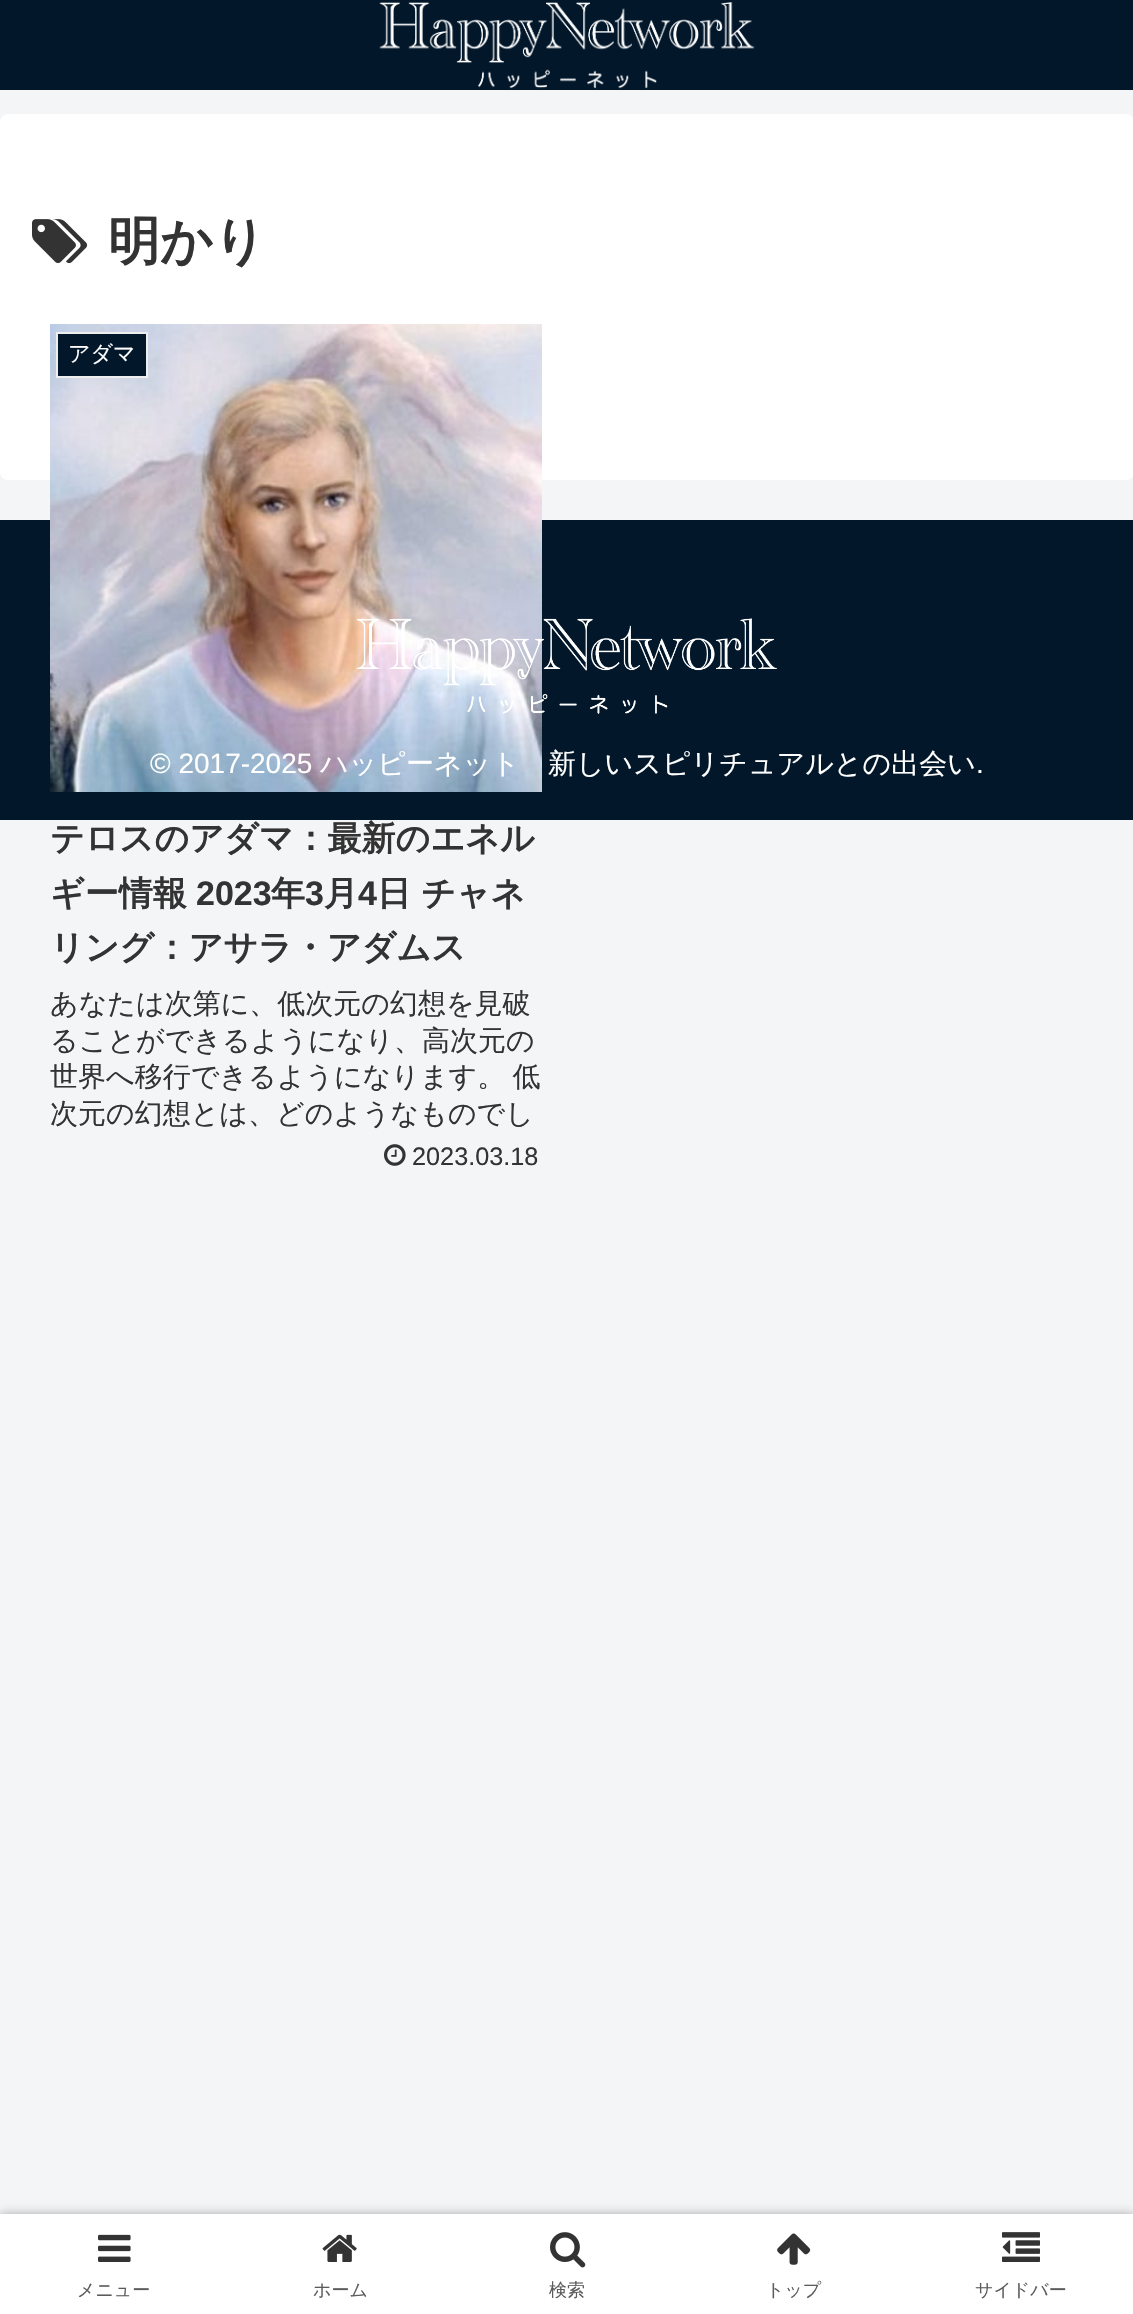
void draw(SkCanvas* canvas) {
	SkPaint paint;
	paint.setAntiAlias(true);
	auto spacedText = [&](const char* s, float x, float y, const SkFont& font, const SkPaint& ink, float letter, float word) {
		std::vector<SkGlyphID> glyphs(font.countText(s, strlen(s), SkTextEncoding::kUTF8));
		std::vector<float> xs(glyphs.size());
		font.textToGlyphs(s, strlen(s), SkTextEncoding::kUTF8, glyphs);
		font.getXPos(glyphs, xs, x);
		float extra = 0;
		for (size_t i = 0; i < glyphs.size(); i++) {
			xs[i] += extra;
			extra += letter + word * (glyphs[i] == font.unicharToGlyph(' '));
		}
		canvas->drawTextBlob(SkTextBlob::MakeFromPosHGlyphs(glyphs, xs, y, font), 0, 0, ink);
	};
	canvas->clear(0xfff4f5f7);
	paint.setColor(0xff02172a);
	canvas->drawRect(SkRect::MakeXYWH(0, 0, 1133, 90), paint);
	canvas->drawImageRect(SkImages::DeferredFromEncodedData(SkData::MakeFromFileName("img1.png")), SkRect::MakeXYWH(379, 2, 376, 87), SkSamplingOptions());
	paint.setColor(0xffffffff);
	canvas->drawRoundRect(SkRect::MakeXYWH(0, 114, 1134, 366), 8, 8, paint);
	canvas->drawImageRect(SkImages::DeferredFromEncodedData(SkData::MakeFromFileName("img2.png")), SkRect::MakeXYWH(32, 219, 56, 45), SkSamplingOptions());
	SkFont f1(fontMgr->matchFamilyStyle("WenQuanYi Zen Hei", SkFontStyle::Bold()), 52);
	f1.setSubpixel(true);
	paint.setColor(0xff333333);
	canvas->drawString("明かり", 108, 259, f1, paint);
	paint.setColor(0xff02172a);
	canvas->drawRect(SkRect::MakeXYWH(0, 520, 1133, 300), paint);
	canvas->drawImageRect(SkImages::DeferredFromEncodedData(SkData::MakeFromFileName("img3.png")), SkRect::MakeXYWH(50, 324, 492, 468), SkSamplingOptions());
	canvas->drawRect(SkRect::MakeXYWH(57, 333, 90, 44), paint);
	paint.setStroke(true);
	paint.setStrokeWidth(2);
	paint.setColor(0xffeeeeee);
	canvas->drawRect(SkRect::MakeXYWH(57, 333, 90, 44), paint);
	SkFont f2(fontMgr->matchFamilyStyle("WenQuanYi Zen Hei", SkFontStyle(500, SkFontStyle::kNormal_Width, SkFontStyle::kUpright_Slant)), 22);
	f2.setSubpixel(true);
	paint.setStroke(false);
	paint.setColor(0xffffffff);
	canvas->drawString("アダマ", 68, 361, f2, paint);
	SkFont f3(fontMgr->matchFamilyStyle("WenQuanYi Zen Hei", SkFontStyle::Bold()), 34);
	f3.setSubpixel(true);
	paint.setColor(0xff333333);
	canvas->drawString("テロスのアダマ：最新のエネル", 50, 850, f3, paint);
	canvas->drawString("ギー情報", 50, 905, f3, paint);
	SkFont f4(fontMgr->matchFamilyStyle("Liberation Sans", SkFontStyle::Bold()), 34);
	f4.setSubpixel(true);
	canvas->drawString("2023", 196, 905, f4, paint);
	canvas->drawString("年", 271, 905, f3, paint);
	canvas->drawString("3", 305, 905, f4, paint);
	canvas->drawString("月", 324, 905, f3, paint);
	canvas->drawString("4", 358, 905, f4, paint);
	canvas->drawString("日 チャネ", 377, 905, f3, paint);
	canvas->drawString("リング：アサラ・アダムス", 50, 959, f3, paint);
	SkFont f5(fontMgr->matchFamilyStyle("WenQuanYi Zen Hei", SkFontStyle(500, SkFontStyle::kNormal_Width, SkFontStyle::kUpright_Slant)), 28);
	f5.setSubpixel(true);
	canvas->drawString("あなたは次第に、低次元の幻想を見破", 50, 1013, f5, paint);
	canvas->drawString("ることができるようになり、高次元の", 50, 1050, f5, paint);
	spacedText("世界へ移行できるようになります。 低", 50, 1086, f5, paint, 0, -1);
	canvas->drawString("次元の幻想とは、どのようなものでし", 50, 1123, f5, paint);
	canvas->drawImageRect(SkImages::DeferredFromEncodedData(SkData::MakeFromFileName("img4.png")), SkRect::MakeXYWH(384, 1144, 22, 22), SkSamplingOptions());
	SkFont f6(fontMgr->matchFamilyStyle("Liberation Sans", SkFontStyle::Normal()), 25.25);
	f6.setSubpixel(true);
	canvas->drawString("2023.03.18", 412, 1165, f6, paint);
	canvas->drawImageRect(SkImages::DeferredFromEncodedData(SkData::MakeFromFileName("img5.png")), SkRect::MakeXYWH(357, 618, 420, 96), SkSamplingOptions());
	SkFont f7(fontMgr->matchFamilyStyle("Liberation Sans", SkFontStyle::Normal()), 28);
	f7.setSubpixel(true);
	paint.setColor(0xffffffff);
	canvas->drawString("© 2017-2025", 150, 773, f7, paint);
	canvas->drawString("ハッピーネット　新しいスピリチュアルとの出会い", 320, 773, f5, paint);
	canvas->drawString(".", 976, 773, f7, paint);
	paint.setColor(0xffa9a9a9);
	paint.setMaskFilter(SkMaskFilter::MakeBlur(kNormal_SkBlurStyle, 5));
	canvas->drawRect(SkRect::MakeXYWH(0, 2214, 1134, 100), paint);
	paint.setMaskFilter(nullptr);
	paint.setColor(0xffffffff);
	canvas->drawRect(SkRect::MakeXYWH(0, 2214, 1133, 100), paint);
	canvas->drawImageRect(SkImages::DeferredFromEncodedData(SkData::MakeFromFileName("img6.png")), SkRect::MakeXYWH(98, 2234, 33, 28), SkSamplingOptions());
	SkFont f8(fontMgr->matchFamilyStyle("WenQuanYi Zen Hei", SkFontStyle(500, SkFontStyle::kNormal_Width, SkFontStyle::kUpright_Slant)), 18);
	f8.setSubpixel(true);
	paint.setColor(0xff5c5c5c);
	canvas->drawString("メニュー", 77, 2296, f8, paint);
	canvas->drawImageRect(SkImages::DeferredFromEncodedData(SkData::MakeFromFileName("img7.png")), SkRect::MakeXYWH(322, 2234, 35, 28), SkSamplingOptions());
	canvas->drawString("ホーム", 313, 2296, f8, paint);
	canvas->drawImageRect(SkImages::DeferredFromEncodedData(SkData::MakeFromFileName("img8.png")), SkRect::MakeXYWH(550, 2232, 36, 36), SkSamplingOptions());
	canvas->drawString("検索", 549, 2296, f8, paint);
	canvas->drawImageRect(SkImages::DeferredFromEncodedData(SkData::MakeFromFileName("img9.png")), SkRect::MakeXYWH(777, 2233, 34, 32), SkSamplingOptions());
	canvas->drawString("トップ", 766, 2296, f8, paint);
	canvas->drawImageRect(SkImages::DeferredFromEncodedData(SkData::MakeFromFileName("img10.png")), SkRect::MakeXYWH(1002, 2232, 38, 30), SkSamplingOptions());
	canvas->drawString("サイドバー", 975, 2296, f8, paint);
}
